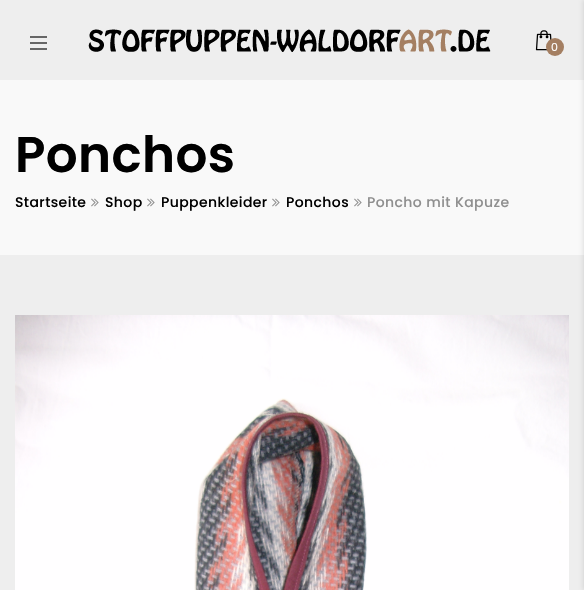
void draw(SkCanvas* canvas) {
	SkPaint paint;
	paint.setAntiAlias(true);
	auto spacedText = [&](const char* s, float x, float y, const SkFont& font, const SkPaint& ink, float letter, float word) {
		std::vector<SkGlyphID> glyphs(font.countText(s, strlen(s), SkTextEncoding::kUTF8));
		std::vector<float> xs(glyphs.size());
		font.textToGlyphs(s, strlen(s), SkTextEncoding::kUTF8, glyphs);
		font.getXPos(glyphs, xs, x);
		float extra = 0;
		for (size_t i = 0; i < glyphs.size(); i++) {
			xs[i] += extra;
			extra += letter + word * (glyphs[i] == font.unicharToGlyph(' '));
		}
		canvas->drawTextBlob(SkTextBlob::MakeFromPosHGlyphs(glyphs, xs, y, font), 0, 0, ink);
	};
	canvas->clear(0xffeeeeee);
	paint.setColor(0xff666666);
	canvas->drawRect(SkRect::MakeXYWH(30, 42, 17, 2), paint);
	canvas->drawRect(SkRect::MakeXYWH(30, 36, 17, 2), paint);
	canvas->drawRect(SkRect::MakeXYWH(30, 48, 17, 2), paint);
	canvas->drawImageRect(SkImages::DeferredFromEncodedData(SkData::MakeFromFileName("img1.png")), SkRect::MakeXYWH(88, 29, 403, 23), SkSamplingOptions());
	canvas->drawImageRect(SkImages::DeferredFromEncodedData(SkData::MakeFromFileName("img2.png")), SkRect::MakeXYWH(535, 30, 17, 21), SkSamplingOptions());
	paint.setColor(0xffa47f62);
	canvas->drawCircle(555, 47, 9, paint);
	SkFont f1(fontMgr->matchFamilyStyle("Poppins", SkFontStyle::Normal()), 11);
	f1.setSubpixel(true);
	paint.setColor(0xffffffff);
	spacedText("0", 551, 51, f1, paint, 0.4, 0);
	paint.setColor(0xfff9f9f9);
	canvas->drawRect(SkRect::MakeXYWH(0, 80, 584, 175), paint);
	paint.setColor(0x1a000000);
	paint.setMaskFilter(SkMaskFilter::MakeBlur(kNormal_SkBlurStyle, 2));
	canvas->drawRect(SkRect::MakeXYWH(583, 0, 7, 590), paint);
	paint.setMaskFilter(nullptr);
	SkFont f2(fontMgr->matchFamilyStyle("Poppins", SkFontStyle(600, SkFontStyle::kNormal_Width, SkFontStyle::kUpright_Slant)), 50);
	f2.setSubpixel(true);
	paint.setColor(0xff000000);
	spacedText("Ponchos", 15, 172, f2, paint, 0.4, 0);
	SkFont f3(fontMgr->matchFamilyStyle("Poppins", SkFontStyle(500, SkFontStyle::kNormal_Width, SkFontStyle::kUpright_Slant)), 14);
	f3.setSubpixel(true);
	spacedText("Startseite", 15, 207, f3, paint, 0.4, 0);
	canvas->drawImageRect(SkImages::DeferredFromEncodedData(SkData::MakeFromFileName("img3.png")), SkRect::MakeXYWH(91, 198, 8, 9), SkSamplingOptions());
	spacedText("Shop", 105, 207, f3, paint, 0.4, 0);
	canvas->drawImageRect(SkImages::DeferredFromEncodedData(SkData::MakeFromFileName("img3.png")), SkRect::MakeXYWH(147, 198, 8, 9), SkSamplingOptions());
	spacedText("Puppenkleider", 161, 207, f3, paint, 0.4, 0);
	canvas->drawImageRect(SkImages::DeferredFromEncodedData(SkData::MakeFromFileName("img3.png")), SkRect::MakeXYWH(272, 198, 8, 9), SkSamplingOptions());
	spacedText("Ponchos", 286, 207, f3, paint, 0.4, 0);
	canvas->drawImageRect(SkImages::DeferredFromEncodedData(SkData::MakeFromFileName("img3.png")), SkRect::MakeXYWH(354, 198, 8, 9), SkSamplingOptions());
	paint.setColor(0xff8f8f8f);
	spacedText("Poncho mit Kapuze", 367, 207, f3, paint, 0.4, 0);
	canvas->drawImageRect(SkImages::DeferredFromEncodedData(SkData::MakeFromFileName("img4.png")), SkRect::MakeXYWH(15, 315, 554, 275), SkSamplingOptions());
}
